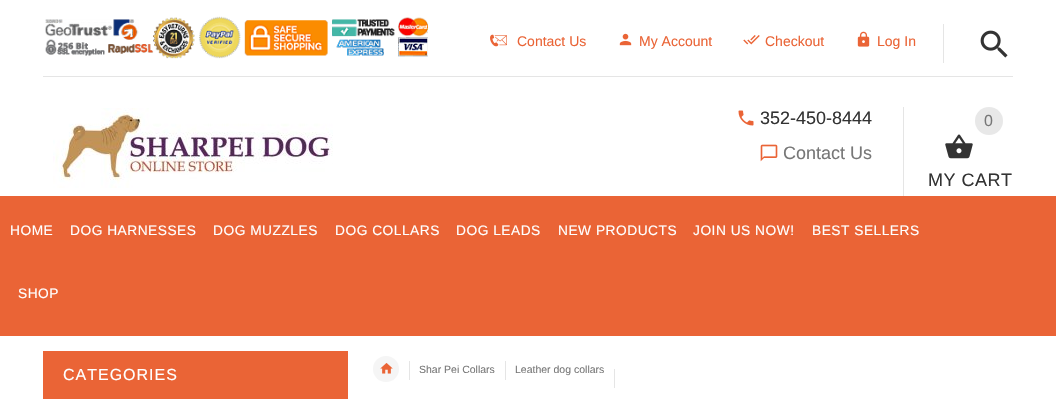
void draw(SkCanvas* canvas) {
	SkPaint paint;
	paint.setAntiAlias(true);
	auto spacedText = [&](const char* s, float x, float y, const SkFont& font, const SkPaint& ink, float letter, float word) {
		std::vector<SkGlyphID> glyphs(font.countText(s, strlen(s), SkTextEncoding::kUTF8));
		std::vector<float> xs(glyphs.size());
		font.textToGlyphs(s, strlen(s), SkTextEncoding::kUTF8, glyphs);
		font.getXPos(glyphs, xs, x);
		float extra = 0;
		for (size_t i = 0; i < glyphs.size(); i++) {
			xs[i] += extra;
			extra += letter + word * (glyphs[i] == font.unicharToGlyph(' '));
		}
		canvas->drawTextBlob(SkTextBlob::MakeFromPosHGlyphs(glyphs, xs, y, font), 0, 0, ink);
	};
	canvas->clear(0xffffffff);
	canvas->drawImageRect(SkImages::DeferredFromEncodedData(SkData::MakeFromFileName("img1.png")), SkRect::MakeXYWH(45, 16, 383, 43), SkSamplingOptions());
	paint.setColor(0xffe5e5e5);
	canvas->drawRect(SkRect::MakeXYWH(943, 24, 1, 39), paint);
	canvas->drawImageRect(SkImages::DeferredFromEncodedData(SkData::MakeFromFileName("img2.png")), SkRect::MakeXYWH(490, 34, 17, 13), SkSamplingOptions());
	SkFont f1(fontMgr->matchFamilyStyle("Liberation Sans", SkFontStyle::Normal()), 14);
	f1.setSubpixel(true);
	paint.setColor(0xffea6436);
	canvas->drawString("Contact Us", 517, 46, f1, paint);
	canvas->drawImageRect(SkImages::DeferredFromEncodedData(SkData::MakeFromFileName("img3.png")), SkRect::MakeXYWH(619, 33, 13, 13), SkSamplingOptions());
	canvas->drawString("My Account", 639, 46, f1, paint);
	canvas->drawImageRect(SkImages::DeferredFromEncodedData(SkData::MakeFromFileName("img4.png")), SkRect::MakeXYWH(743, 35, 17, 10), SkSamplingOptions());
	canvas->drawString("Checkout", 765, 46, f1, paint);
	canvas->drawImageRect(SkImages::DeferredFromEncodedData(SkData::MakeFromFileName("img5.png")), SkRect::MakeXYWH(857, 31, 13, 16), SkSamplingOptions());
	canvas->drawString("Log In", 877, 46, f1, paint);
	canvas->drawImageRect(SkImages::DeferredFromEncodedData(SkData::MakeFromFileName("img6.png")), SkRect::MakeXYWH(980, 30, 28, 28), SkSamplingOptions());
	paint.setColor(0xffe5e5e5);
	canvas->drawRect(SkRect::MakeXYWH(43, 76, 970, 1), paint);
	canvas->drawImageRect(SkImages::DeferredFromEncodedData(SkData::MakeFromFileName("img7.png")), SkRect::MakeXYWH(53, 108, 280, 80), SkSamplingOptions());
	canvas->drawImageRect(SkImages::DeferredFromEncodedData(SkData::MakeFromFileName("img8.png")), SkRect::MakeXYWH(738, 110, 16, 16), SkSamplingOptions());
	SkFont f2(fontMgr->matchFamilyStyle("Liberation Sans", SkFontStyle::Normal()), 18);
	f2.setSubpixel(true);
	paint.setColor(0xff333333);
	canvas->drawString("352-450-8444", 760, 124, f2, paint);
	canvas->drawImageRect(SkImages::DeferredFromEncodedData(SkData::MakeFromFileName("img9.png")), SkRect::MakeXYWH(760, 144, 18, 18), SkSamplingOptions());
	paint.setColor(0xff777777);
	canvas->drawString("Contact Us", 783, 159, f2, paint);
	paint.setColor(0xffe5e5e5);
	canvas->drawRect(SkRect::MakeXYWH(903, 107, 1, 89), paint);
	paint.setColor(0xffe8e8e8);
	canvas->drawCircle(989, 121, 14, paint);
	SkFont f3(fontMgr->matchFamilyStyle("Liberation Sans", SkFontStyle::Normal()), 16);
	f3.setSubpixel(true);
	paint.setColor(0xff777777);
	canvas->drawString("0", 984, 126, f3, paint);
	canvas->drawImageRect(SkImages::DeferredFromEncodedData(SkData::MakeFromFileName("img10.png")), SkRect::MakeXYWH(945, 134, 28, 25), SkSamplingOptions());
	paint.setColor(0xff333333);
	spacedText("MY CART", 928, 186, f2, paint, 0.5, 0);
	paint.setColor(0xffea6436);
	canvas->drawRect(SkRect::MakeXYWH(0, 196, 1056, 140), paint);
	SkFont f4(fontMgr->matchFamilyStyle("Liberation Sans", SkFontStyle::Normal()), 13.75);
	f4.setSubpixel(true);
	paint.setColor(0xffffffff);
	spacedText("HOME", 10, 235, f4, paint, 0.5, 0);
	spacedText("DOG HARNESSES", 70, 235, f4, paint, 0.5, 0);
	spacedText("DOG MUZZLES", 213, 235, f4, paint, 0.5, 0);
	spacedText("DOG COLLARS", 335, 235, f4, paint, 0.5, 0);
	spacedText("DOG LEADS", 456, 235, f4, paint, 0.5, 0);
	spacedText("NEW PRODUCTS", 558, 235, f4, paint, 0.5, 0);
	spacedText("JOIN US NOW!", 693, 235, f4, paint, 0.5, 0);
	spacedText("BEST SELLERS", 812, 235, f4, paint, 0.5, 0);
	spacedText("SHOP", 18, 298, f4, paint, 0.5, 0);
	paint.setColor(0xffea6436);
	canvas->drawRect(SkRect::MakeXYWH(43, 351, 305, 48), paint);
	paint.setColor(0xffffffff);
	spacedText("CATEGORIES", 63, 380, f3, paint, 1, 0);
	paint.setColor(0xfff5f5f5);
	canvas->drawCircle(386, 369, 13, paint);
	canvas->drawImageRect(SkImages::DeferredFromEncodedData(SkData::MakeFromFileName("img11.png")), SkRect::MakeXYWH(380, 363, 13, 11), SkSamplingOptions());
	paint.setColor(0xffe5e5e5);
	canvas->drawRect(SkRect::MakeXYWH(409, 361, 1, 19), paint);
	SkFont f5(fontMgr->matchFamilyStyle("Liberation Sans", SkFontStyle::Normal()), 10.5);
	f5.setSubpixel(true);
	paint.setColor(0xff777777);
	canvas->drawString("Shar Pei Collars", 419, 373, f5, paint);
	paint.setColor(0xffe5e5e5);
	canvas->drawRect(SkRect::MakeXYWH(505, 361, 1, 19), paint);
	paint.setColor(0xff777777);
	canvas->drawString("Leather dog collars", 515, 373, f5, paint);
	paint.setColor(0xffe5e5e5);
	canvas->drawRect(SkRect::MakeXYWH(614, 369, 1, 19), paint);
}
